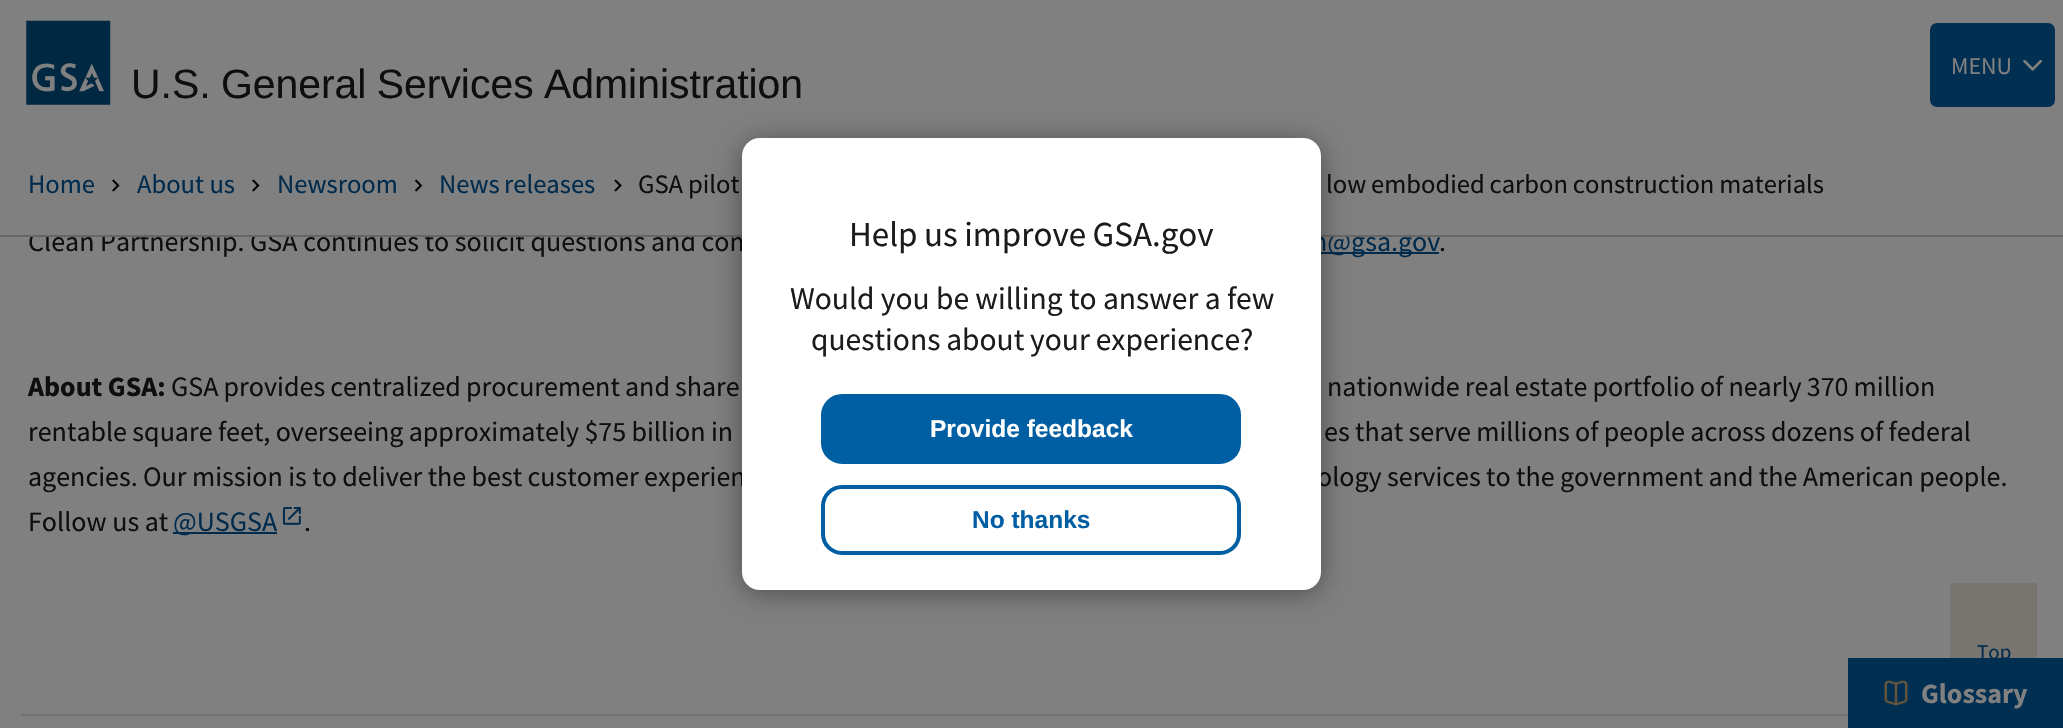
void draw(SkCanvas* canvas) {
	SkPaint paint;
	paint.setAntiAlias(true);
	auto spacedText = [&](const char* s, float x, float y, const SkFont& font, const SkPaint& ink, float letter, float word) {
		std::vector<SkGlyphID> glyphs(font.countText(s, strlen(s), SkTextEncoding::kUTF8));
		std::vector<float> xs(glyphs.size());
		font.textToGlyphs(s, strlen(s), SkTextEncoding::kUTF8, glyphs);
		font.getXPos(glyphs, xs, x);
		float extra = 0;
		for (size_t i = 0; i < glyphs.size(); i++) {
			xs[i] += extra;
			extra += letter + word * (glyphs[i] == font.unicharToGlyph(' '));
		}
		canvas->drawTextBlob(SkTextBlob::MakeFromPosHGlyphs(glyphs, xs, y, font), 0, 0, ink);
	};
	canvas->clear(0xff808080);
	SkFont f1(fontMgr->matchFamilyStyle("Source Sans Pro", SkFontStyle::Normal()), 28);
	f1.setSubpixel(true);
	paint.setColor(0xff0e0e0e);
	canvas->drawString("Clean Partnership. GSA continues to solicit questions and com", 28, 251, f1, paint);
	paint.setColor(0xff002b4d);
	canvas->drawRect(SkRect::MakeXYWH(1321, 252, 118, 2), paint);
	canvas->drawString("n@gsa.gov", 1312, 251, f1, paint);
	paint.setColor(0xff808080);
	canvas->drawRect(SkRect::MakeXYWH(31, 231, 1316, 4), paint);
	paint.setColor(0xff666666);
	canvas->drawRect(SkRect::MakeXYWH(0, 235, 2063, 2), paint);
	canvas->drawImageRect(SkImages::DeferredFromEncodedData(SkData::MakeFromFileName("img1.png")), SkRect::MakeXYWH(26, 20, 85, 85), SkSamplingOptions());
	SkFont f2(fontMgr->matchFamilyStyle("Liberation Sans", SkFontStyle::Normal()), 40.9);
	f2.setSubpixel(true);
	paint.setColor(0xff0e0e0e);
	spacedText("U.S. General Services Administration", 131, 98, f2, paint, 0, -1);
	paint.setColor(0xff002f51);
	canvas->drawRoundRect(SkRect::MakeXYWH(1930, 23, 125, 84), 7, 7, paint);
	canvas->drawImageRect(SkImages::DeferredFromEncodedData(SkData::MakeFromFileName("img2.png")), SkRect::MakeXYWH(2023, 60, 19, 11), SkSamplingOptions());
	SkFont f3(fontMgr->matchFamilyStyle("Source Sans Pro", SkFontStyle::Normal()), 24);
	f3.setSubpixel(true);
	paint.setColor(0xff808080);
	canvas->drawString("MENU", 1951, 74, f3, paint);
	SkFont f4(fontMgr->matchFamilyStyle("Source Sans Pro", SkFontStyle::Normal()), 26.6);
	f4.setSubpixel(true);
	paint.setColor(0xff002b4d);
	canvas->drawString("Home", 28, 193, f4, paint);
	canvas->drawImageRect(SkImages::DeferredFromEncodedData(SkData::MakeFromFileName("img3.png")), SkRect::MakeXYWH(112, 179, 8, 13), SkSamplingOptions());
	canvas->drawString("About us", 137, 193, f4, paint);
	canvas->drawImageRect(SkImages::DeferredFromEncodedData(SkData::MakeFromFileName("img3.png")), SkRect::MakeXYWH(252, 179, 8, 13), SkSamplingOptions());
	canvas->drawString("Newsroom", 277, 193, f4, paint);
	canvas->drawImageRect(SkImages::DeferredFromEncodedData(SkData::MakeFromFileName("img4.png")), SkRect::MakeXYWH(414, 179, 9, 13), SkSamplingOptions());
	spacedText("News releases", 439, 193, f4, paint, 0, -1);
	canvas->drawImageRect(SkImages::DeferredFromEncodedData(SkData::MakeFromFileName("img5.png")), SkRect::MakeXYWH(614, 179, 8, 13), SkSamplingOptions());
	paint.setColor(0xff0e0e0e);
	spacedText("GSA pilot", 638, 193, f4, paint, 0, -0.5);
	spacedText("low embodied carbon construction materials", 1326, 193, f4, paint, 0, -0.5);
	canvas->drawString(".", 1439, 251, f1, paint);
	SkFont f5(fontMgr->matchFamilyStyle("Source Sans Pro", SkFontStyle::Bold()), 28);
	f5.setSubpixel(true);
	canvas->drawString("About GSA:", 28, 396, f5, paint);
	spacedText("GSA provides centralized procurement and share", 171, 396, f1, paint, 0, -0.5);
	spacedText("nationwide real estate portfolio of nearly 370 million", 1327, 396, f1, paint, 0, -0.5);
	spacedText("rentable square feet, overseeing approximately $75 billion in", 28, 441, f1, paint, 0, -0.25);
	spacedText("es that serve millions of people across dozens of federal", 1324, 441, f1, paint, 0, -0.25);
	spacedText("agencies. Our mission is to deliver the best customer experien", 28, 486, f1, paint, 0, -0.25);
	spacedText("ology services to the government and the American people.", 1317, 486, f1, paint, 0, -0.25);
	canvas->drawString("Follow us at", 28, 531, f1, paint);
	paint.setColor(0xff002b4d);
	canvas->drawRect(SkRect::MakeXYWH(173, 532, 104, 2), paint);
	canvas->drawString("@USGSA", 173, 531, f1, paint);
	canvas->drawImageRect(SkImages::DeferredFromEncodedData(SkData::MakeFromFileName("img6.png")), SkRect::MakeXYWH(282, 507, 19, 18), SkSamplingOptions());
	paint.setColor(0xff0e0e0e);
	canvas->drawString(".", 304, 531, f1, paint);
	paint.setColor(0xff787570);
	canvas->drawRect(SkRect::MakeXYWH(1950, 583, 87, 75), paint);
	SkFont f6(fontMgr->matchFamilyStyle("Source Sans Pro", SkFontStyle::Normal()), 21);
	f6.setSubpixel(true);
	paint.setColor(0xff002b4d);
	canvas->drawString("Top", 1977, 659, f6, paint);
	paint.setColor(0xff002f51);
	canvas->drawRect(SkRect::MakeXYWH(1848, 658, 215, 70), paint);
	canvas->drawImageRect(SkImages::DeferredFromEncodedData(SkData::MakeFromFileName("img7.png")), SkRect::MakeXYWH(1884, 680, 24, 26), SkSamplingOptions());
	paint.setColor(0xff808080);
	canvas->drawString("Glossary", 1921, 703, f5, paint);
	paint.setColor(0xff707376);
	canvas->drawRect(SkRect::MakeXYWH(21, 714, 1827, 2), paint);
	paint.setColor(0x66000000);
	paint.setMaskFilter(SkMaskFilter::MakeBlur(kNormal_SkBlurStyle, 14));
	canvas->drawRoundRect(SkRect::MakeXYWH(742, 142, 579, 451), 18, 18, paint);
	paint.setMaskFilter(nullptr);
	paint.setColor(0xffffffff);
	canvas->drawRoundRect(SkRect::MakeXYWH(742, 138, 579, 452), 18, 18, paint);
	SkFont f7(fontMgr->matchFamilyStyle("Source Sans Pro", SkFontStyle::Normal()), 35);
	f7.setSubpixel(true);
	paint.setColor(0xff1b1b1b);
	spacedText("Help us improve GSA.gov", 849, 246, f7, paint, 0, -0.5);
	SkFont f8(fontMgr->matchFamilyStyle("Source Sans Pro", SkFontStyle::Normal()), 31.5);
	f8.setSubpixel(true);
	canvas->drawString("Would you be willing to answer a few", 790, 309, f8, paint);
	spacedText("questions about your experience?", 811, 350, f8, paint, 0, -0.5);
	paint.setColor(0xff005ea2);
	canvas->drawRoundRect(SkRect::MakeXYWH(823, 396, 416, 66), 19, 19, paint);
	paint.setStroke(true);
	paint.setStrokeWidth(4);
	canvas->drawRoundRect(SkRect::MakeXYWH(823, 396, 416, 66), 19, 19, paint);
	SkFont f9(fontMgr->matchFamilyStyle("Liberation Sans", SkFontStyle::Bold()), 24.5);
	f9.setSubpixel(true);
	paint.setStroke(false);
	paint.setColor(0xffffffff);
	canvas->drawString("Provide feedback", 930, 437, f9, paint);
	paint.setStroke(true);
	paint.setColor(0xff005ea2);
	canvas->drawRoundRect(SkRect::MakeXYWH(823, 487, 416, 66), 19, 19, paint);
	paint.setStroke(false);
	canvas->drawString("No thanks", 972, 528, f9, paint);
}
